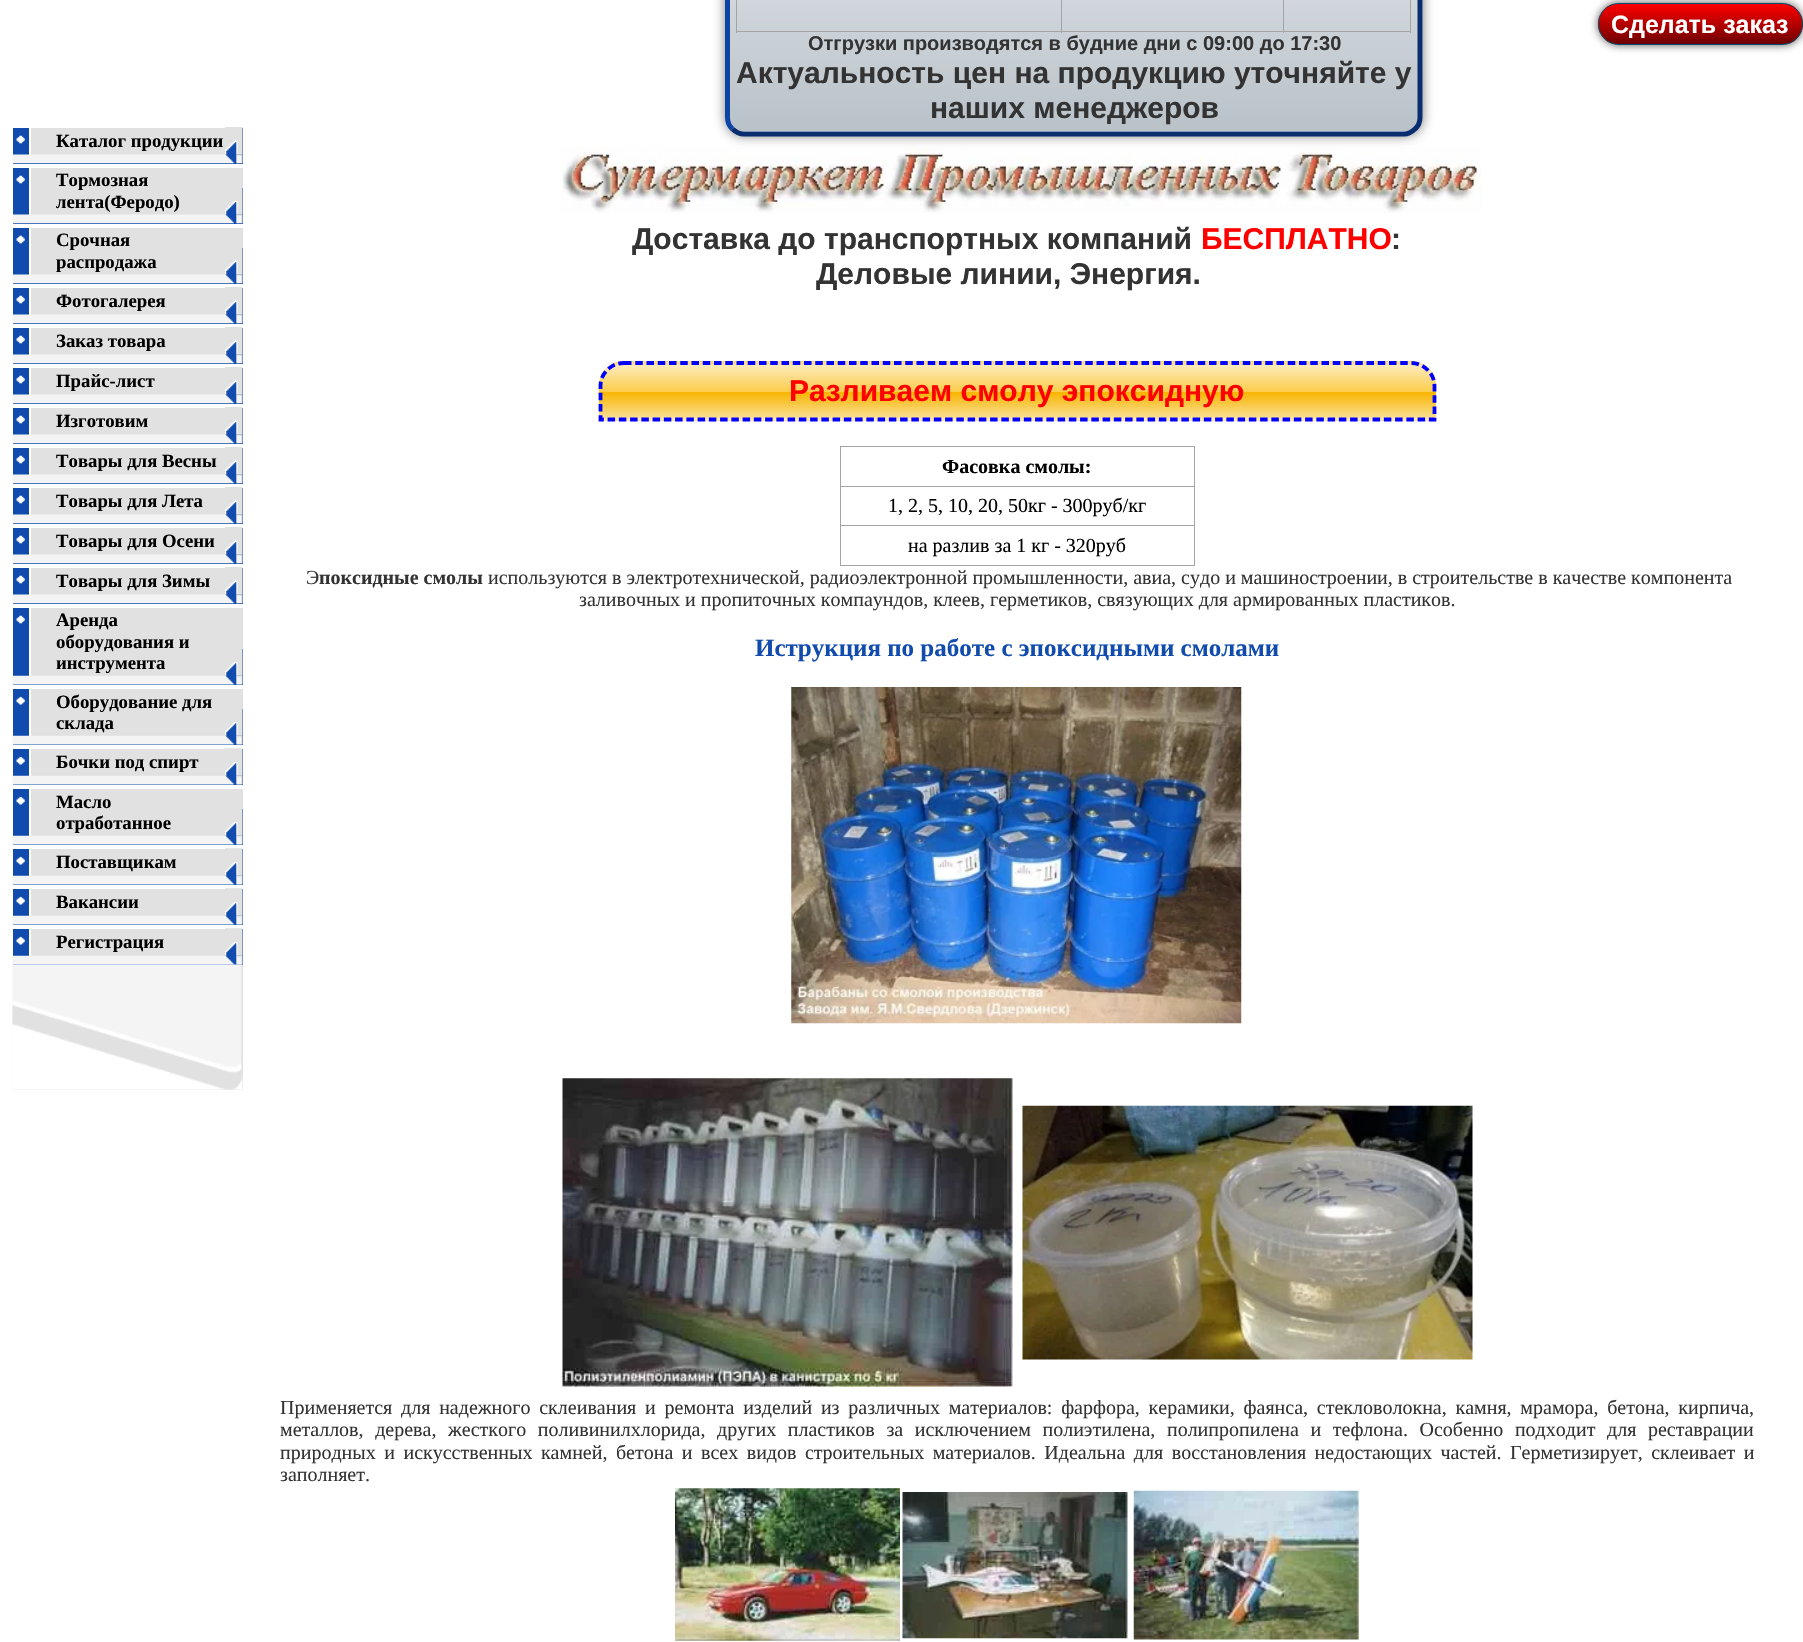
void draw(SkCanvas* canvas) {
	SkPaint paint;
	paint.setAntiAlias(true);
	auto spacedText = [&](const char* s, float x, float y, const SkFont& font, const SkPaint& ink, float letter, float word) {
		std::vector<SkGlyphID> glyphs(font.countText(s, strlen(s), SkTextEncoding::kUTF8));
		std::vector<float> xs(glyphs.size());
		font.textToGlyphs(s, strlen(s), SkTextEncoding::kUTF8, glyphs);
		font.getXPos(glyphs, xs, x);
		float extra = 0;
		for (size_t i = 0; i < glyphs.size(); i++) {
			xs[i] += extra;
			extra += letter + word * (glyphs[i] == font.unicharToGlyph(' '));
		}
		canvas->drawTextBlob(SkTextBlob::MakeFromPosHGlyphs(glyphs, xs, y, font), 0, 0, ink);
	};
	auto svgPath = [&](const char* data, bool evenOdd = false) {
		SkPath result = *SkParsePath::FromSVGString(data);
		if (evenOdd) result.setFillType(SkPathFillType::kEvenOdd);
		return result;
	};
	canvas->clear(0xffffffff);
	paint.setColor(0xff575757);
	paint.setMaskFilter(SkMaskFilter::MakeBlur(kNormal_SkBlurStyle, 4.5));
	canvas->drawRoundRect(SkRect::MakeXYWH(1598, 3, 205, 42), 21, 21, paint);
	paint.setMaskFilter(nullptr);
	canvas->save();
	canvas->clipPath(svgPath("M1619 3H1782C1793.5 3 1803 12.5 1803 24C1803 35.5 1793.5 45 1782 45H1619C1607.5 45 1598 35.5 1598 24C1598 12.5 1607.5 3 1619 3Z"), true);
	{
		const SkColor colors[] = {0xffff0000, 0xff6d0000};
		const float stops[] = {0, 1};
		const SkPoint ends[] = {{1700, 3.7}, {1700, 44}};
		paint.setShader(SkGradientShader::MakeLinear(ends, colors, stops, 2, SkTileMode::kClamp));
		paint.setAlpha(255);
	}
	canvas->drawRect(SkRect::MakeXYWH(1598, 4, 205, 40), paint);
	canvas->restore();
	paint.setStroke(true);
	paint.setStrokeWidth(1);
	paint.setShader(nullptr);
	paint.setColor(0xff004f72);
	canvas->drawRoundRect(SkRect::MakeXYWH(1598.5, 3.5, 204, 41), 20.5, 20.5, paint);
	SkFont f1(fontMgr->matchFamilyStyle("Liberation Sans", SkFontStyle::Bold()), 25);
	f1.setSubpixel(true);
	paint.setStroke(false);
	paint.setColor(0xffffffff);
	canvas->drawString("Сделать заказ", 1611, 33, f1, paint);
	canvas->drawImageRect(SkImages::DeferredFromEncodedData(SkData::MakeFromFileName("img14.png")), SkRect::MakeXYWH(562, 147, 920, 66), SkSamplingOptions());
	paint.setColor(0x80000000);
	paint.setMaskFilter(SkMaskFilter::MakeBlur(kNormal_SkBlurStyle, 6));
	canvas->drawRoundRect(SkRect::MakeXYWH(725, -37, 698, 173), 19, 19, paint);
	paint.setMaskFilter(nullptr);
	canvas->save();
	canvas->clipPath(svgPath("M744-267H1404C1414.5-267 1423-258.5 1423-248V117C1423 127.5 1414.5 136 1404 136H744C733.5 136 725 127.5 725 117V-248C725-258.5 733.5-267 744-267Z"), true);
	{
		const SkColor colors[] = {0xffb9c2c9, 0xffffffff};
		const float stops[] = {0, 1};
		const SkPoint ends[] = {{1074, 131}, {1074, -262}};
		paint.setShader(SkGradientShader::MakeLinear(ends, colors, stops, 2, SkTileMode::kClamp));
		paint.setAlpha(255);
	}
	canvas->drawRect(SkRect::MakeXYWH(725, 0, 698, 131), paint);
	{
		const SkColor colors[] = {0xffb9c2c9, 0xffffffff};
		const float stops[] = {0, 1};
		const SkPoint ends[] = {{1074, 525}, {1074, 131}};
		paint.setShader(SkGradientShader::MakeLinear(ends, colors, stops, 2, SkTileMode::kClamp));
		paint.setAlpha(255);
	}
	canvas->drawRect(SkRect::MakeXYWH(725, 131, 698, 5), paint);
	canvas->restore();
	paint.setStroke(true);
	paint.setStrokeWidth(5);
	paint.setShader(nullptr);
	paint.setColor(0xff092d6f);
	canvas->drawPath(svgPath("M1415-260C1418.5-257 1420-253 1420-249V117.5C1420 122 1418.5 126 1415 129C1412 132 1408 134 1404 134H744C739.5 134 735.5 132 732.5 129"), paint);
	paint.setColor(0xff0e43a6);
	canvas->drawPath(svgPath("M732.5 129C729 126 727.5 122 727.5 117.5V-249C727.5-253 729-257 732.5-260C735.5-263.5 739.5-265 744-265H1404C1408-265 1412-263.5 1415-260"), paint);
	paint.setStroke(false);
	paint.setColor(0xffa4a4a4);
	canvas->drawRect(SkRect::MakeXYWH(1410, 0, 1, 33), paint);
	canvas->drawRect(SkRect::MakeXYWH(1283, 31, 128, 1), paint);
	canvas->drawRect(SkRect::MakeXYWH(1283, 0, 1, 33), paint);
	canvas->drawRect(SkRect::MakeXYWH(1061, 31, 223, 1), paint);
	canvas->drawRect(SkRect::MakeXYWH(1061, 0, 1, 33), paint);
	canvas->drawRect(SkRect::MakeXYWH(736, 31, 327, 1), paint);
	canvas->drawRect(SkRect::MakeXYWH(736, 0, 1, 33), paint);
	SkFont f2(fontMgr->matchFamilyStyle("Liberation Sans", SkFontStyle::Bold()), 20);
	f2.setSubpixel(true);
	paint.setColor(0xff333333);
	canvas->drawString("Отгрузки производятся в будние дни с 09:00 до 17:30", 808, 50, f2, paint);
	SkFont f3(fontMgr->matchFamilyStyle("Liberation Sans", SkFontStyle::Bold()), 30);
	f3.setSubpixel(true);
	canvas->drawString("Актуальность цен на продукцию уточняйте у", 736, 83, f3, paint);
	canvas->drawString("наших менеджеров", 930, 118, f3, paint);
	paint.setColor(0xff104bad);
	canvas->drawRect(SkRect::MakeXYWH(13, 128, 16, 27), paint);
	canvas->drawImageRect(SkImages::DeferredFromEncodedData(SkData::MakeFromFileName("img1.png")), SkRect::MakeXYWH(16, 135, 9, 9), SkSamplingOptions());
	paint.setColor(0xffe1e1e1);
	canvas->drawRect(SkRect::MakeXYWH(31, 128, 194, 27), paint);
	SkFont f4(fontMgr->matchFamilyStyle("Liberation Serif", SkFontStyle::Bold()), 18.75);
	f4.setSubpixel(true);
	paint.setColor(0xff000000);
	canvas->drawString("Каталог продукции", 56, 147, f4, paint);
	paint.setColor(0xff104bad);
	canvas->drawRect(SkRect::MakeXYWH(225, 128, 18, 27), paint);
	canvas->drawImageRect(SkImages::DeferredFromEncodedData(SkData::MakeFromFileName("img2.png")), SkRect::MakeXYWH(225, 127, 18, 28), SkSamplingOptions());
	canvas->drawRect(SkRect::MakeXYWH(13, 155, 230, 9), paint);
	canvas->drawImageRect(SkImages::DeferredFromEncodedData(SkData::MakeFromFileName("img3.png")), SkRect::MakeXYWH(12, 154, 231, 10), SkSamplingOptions());
	canvas->drawRect(SkRect::MakeXYWH(13, 168, 16, 47), paint);
	canvas->drawImageRect(SkImages::DeferredFromEncodedData(SkData::MakeFromFileName("img1.png")), SkRect::MakeXYWH(16, 175, 9, 9), SkSamplingOptions());
	paint.setColor(0xffe1e1e1);
	canvas->drawRect(SkRect::MakeXYWH(31, 168, 194, 47), paint);
	paint.setColor(0xff000000);
	canvas->drawString("Тормозная", 56, 186, f4, paint);
	canvas->drawString("лента(Феродо)", 56, 208, f4, paint);
	paint.setColor(0xffe1e1e1);
	canvas->drawRect(SkRect::MakeXYWH(225, 168, 18, 20), paint);
	paint.setColor(0xff104bad);
	canvas->drawRect(SkRect::MakeXYWH(225, 188, 18, 27), paint);
	canvas->drawImageRect(SkImages::DeferredFromEncodedData(SkData::MakeFromFileName("img4.png")), SkRect::MakeXYWH(225, 188, 18, 27), SkSamplingOptions());
	canvas->drawRect(SkRect::MakeXYWH(13, 215, 230, 9), paint);
	canvas->drawImageRect(SkImages::DeferredFromEncodedData(SkData::MakeFromFileName("img3.png")), SkRect::MakeXYWH(12, 214, 231, 10), SkSamplingOptions());
	canvas->drawRect(SkRect::MakeXYWH(13, 228, 16, 47), paint);
	canvas->drawImageRect(SkImages::DeferredFromEncodedData(SkData::MakeFromFileName("img1.png")), SkRect::MakeXYWH(16, 235, 9, 9), SkSamplingOptions());
	paint.setColor(0xffe1e1e1);
	canvas->drawRect(SkRect::MakeXYWH(31, 228, 194, 47), paint);
	paint.setColor(0xff000000);
	canvas->drawString("Срочная", 56, 246, f4, paint);
	canvas->drawString("распродажа", 56, 268, f4, paint);
	paint.setColor(0xffe1e1e1);
	canvas->drawRect(SkRect::MakeXYWH(225, 228, 18, 20), paint);
	paint.setColor(0xff104bad);
	canvas->drawRect(SkRect::MakeXYWH(225, 248, 18, 27), paint);
	canvas->drawImageRect(SkImages::DeferredFromEncodedData(SkData::MakeFromFileName("img4.png")), SkRect::MakeXYWH(225, 248, 18, 27), SkSamplingOptions());
	canvas->drawRect(SkRect::MakeXYWH(13, 275, 230, 9), paint);
	canvas->drawImageRect(SkImages::DeferredFromEncodedData(SkData::MakeFromFileName("img3.png")), SkRect::MakeXYWH(12, 274, 231, 10), SkSamplingOptions());
	canvas->drawRect(SkRect::MakeXYWH(13, 288, 16, 27), paint);
	canvas->drawImageRect(SkImages::DeferredFromEncodedData(SkData::MakeFromFileName("img1.png")), SkRect::MakeXYWH(16, 295, 9, 9), SkSamplingOptions());
	paint.setColor(0xffe1e1e1);
	canvas->drawRect(SkRect::MakeXYWH(31, 288, 194, 27), paint);
	paint.setColor(0xff000000);
	canvas->drawString("Фотогалерея", 56, 307, f4, paint);
	paint.setColor(0xff104bad);
	canvas->drawRect(SkRect::MakeXYWH(225, 288, 18, 27), paint);
	canvas->drawImageRect(SkImages::DeferredFromEncodedData(SkData::MakeFromFileName("img2.png")), SkRect::MakeXYWH(225, 287, 18, 28), SkSamplingOptions());
	canvas->drawRect(SkRect::MakeXYWH(13, 315, 230, 9), paint);
	canvas->drawImageRect(SkImages::DeferredFromEncodedData(SkData::MakeFromFileName("img3.png")), SkRect::MakeXYWH(12, 314, 231, 10), SkSamplingOptions());
	canvas->drawRect(SkRect::MakeXYWH(13, 328, 16, 27), paint);
	canvas->drawImageRect(SkImages::DeferredFromEncodedData(SkData::MakeFromFileName("img1.png")), SkRect::MakeXYWH(16, 335, 9, 9), SkSamplingOptions());
	paint.setColor(0xffe1e1e1);
	canvas->drawRect(SkRect::MakeXYWH(31, 328, 194, 27), paint);
	paint.setColor(0xff000000);
	canvas->drawString("Заказ товара", 56, 347, f4, paint);
	paint.setColor(0xff104bad);
	canvas->drawRect(SkRect::MakeXYWH(225, 328, 18, 27), paint);
	canvas->drawImageRect(SkImages::DeferredFromEncodedData(SkData::MakeFromFileName("img2.png")), SkRect::MakeXYWH(225, 327, 18, 28), SkSamplingOptions());
	canvas->drawRect(SkRect::MakeXYWH(13, 355, 230, 9), paint);
	canvas->drawImageRect(SkImages::DeferredFromEncodedData(SkData::MakeFromFileName("img3.png")), SkRect::MakeXYWH(12, 354, 231, 10), SkSamplingOptions());
	canvas->drawRect(SkRect::MakeXYWH(13, 368, 16, 27), paint);
	canvas->drawImageRect(SkImages::DeferredFromEncodedData(SkData::MakeFromFileName("img1.png")), SkRect::MakeXYWH(16, 375, 9, 9), SkSamplingOptions());
	paint.setColor(0xffe1e1e1);
	canvas->drawRect(SkRect::MakeXYWH(31, 368, 194, 27), paint);
	paint.setColor(0xff000000);
	canvas->drawString("Прайс-лист", 56, 387, f4, paint);
	paint.setColor(0xff104bad);
	canvas->drawRect(SkRect::MakeXYWH(225, 368, 18, 27), paint);
	canvas->drawImageRect(SkImages::DeferredFromEncodedData(SkData::MakeFromFileName("img2.png")), SkRect::MakeXYWH(225, 367, 18, 28), SkSamplingOptions());
	canvas->drawRect(SkRect::MakeXYWH(13, 395, 230, 9), paint);
	canvas->drawImageRect(SkImages::DeferredFromEncodedData(SkData::MakeFromFileName("img3.png")), SkRect::MakeXYWH(12, 394, 231, 10), SkSamplingOptions());
	canvas->drawRect(SkRect::MakeXYWH(13, 408, 16, 27), paint);
	canvas->drawImageRect(SkImages::DeferredFromEncodedData(SkData::MakeFromFileName("img1.png")), SkRect::MakeXYWH(16, 415, 9, 9), SkSamplingOptions());
	paint.setColor(0xffe1e1e1);
	canvas->drawRect(SkRect::MakeXYWH(31, 408, 194, 27), paint);
	paint.setColor(0xff000000);
	canvas->drawString("Изготовим", 56, 427, f4, paint);
	paint.setColor(0xff104bad);
	canvas->drawRect(SkRect::MakeXYWH(225, 408, 18, 27), paint);
	canvas->drawImageRect(SkImages::DeferredFromEncodedData(SkData::MakeFromFileName("img2.png")), SkRect::MakeXYWH(225, 407, 18, 28), SkSamplingOptions());
	canvas->drawRect(SkRect::MakeXYWH(13, 435, 230, 9), paint);
	canvas->drawImageRect(SkImages::DeferredFromEncodedData(SkData::MakeFromFileName("img3.png")), SkRect::MakeXYWH(12, 434, 231, 10), SkSamplingOptions());
	canvas->drawRect(SkRect::MakeXYWH(13, 448, 16, 27), paint);
	canvas->drawImageRect(SkImages::DeferredFromEncodedData(SkData::MakeFromFileName("img1.png")), SkRect::MakeXYWH(16, 455, 9, 9), SkSamplingOptions());
	paint.setColor(0xffe1e1e1);
	canvas->drawRect(SkRect::MakeXYWH(31, 448, 194, 27), paint);
	paint.setColor(0xff000000);
	canvas->drawString("Товары для Весны", 56, 467, f4, paint);
	paint.setColor(0xff104bad);
	canvas->drawRect(SkRect::MakeXYWH(225, 448, 18, 27), paint);
	canvas->drawImageRect(SkImages::DeferredFromEncodedData(SkData::MakeFromFileName("img2.png")), SkRect::MakeXYWH(225, 447, 18, 28), SkSamplingOptions());
	canvas->drawRect(SkRect::MakeXYWH(13, 475, 230, 9), paint);
	canvas->drawImageRect(SkImages::DeferredFromEncodedData(SkData::MakeFromFileName("img3.png")), SkRect::MakeXYWH(12, 474, 231, 10), SkSamplingOptions());
	canvas->drawRect(SkRect::MakeXYWH(13, 488, 16, 27), paint);
	canvas->drawImageRect(SkImages::DeferredFromEncodedData(SkData::MakeFromFileName("img1.png")), SkRect::MakeXYWH(16, 495, 9, 9), SkSamplingOptions());
	paint.setColor(0xffe1e1e1);
	canvas->drawRect(SkRect::MakeXYWH(31, 488, 194, 27), paint);
	paint.setColor(0xff000000);
	canvas->drawString("Товары для Лета", 56, 507, f4, paint);
	paint.setColor(0xff104bad);
	canvas->drawRect(SkRect::MakeXYWH(225, 488, 18, 27), paint);
	canvas->drawImageRect(SkImages::DeferredFromEncodedData(SkData::MakeFromFileName("img2.png")), SkRect::MakeXYWH(225, 487, 18, 28), SkSamplingOptions());
	canvas->drawRect(SkRect::MakeXYWH(13, 515, 230, 9), paint);
	canvas->drawImageRect(SkImages::DeferredFromEncodedData(SkData::MakeFromFileName("img3.png")), SkRect::MakeXYWH(12, 514, 231, 10), SkSamplingOptions());
	canvas->drawRect(SkRect::MakeXYWH(13, 528, 16, 27), paint);
	canvas->drawImageRect(SkImages::DeferredFromEncodedData(SkData::MakeFromFileName("img1.png")), SkRect::MakeXYWH(16, 535, 9, 9), SkSamplingOptions());
	paint.setColor(0xffe1e1e1);
	canvas->drawRect(SkRect::MakeXYWH(31, 528, 194, 27), paint);
	paint.setColor(0xff000000);
	canvas->drawString("Товары для Осени", 56, 547, f4, paint);
	paint.setColor(0xff104bad);
	canvas->drawRect(SkRect::MakeXYWH(225, 528, 18, 27), paint);
	canvas->drawImageRect(SkImages::DeferredFromEncodedData(SkData::MakeFromFileName("img2.png")), SkRect::MakeXYWH(225, 527, 18, 28), SkSamplingOptions());
	canvas->drawRect(SkRect::MakeXYWH(13, 555, 230, 9), paint);
	canvas->drawImageRect(SkImages::DeferredFromEncodedData(SkData::MakeFromFileName("img3.png")), SkRect::MakeXYWH(12, 554, 231, 10), SkSamplingOptions());
	canvas->drawRect(SkRect::MakeXYWH(13, 568, 16, 27), paint);
	canvas->drawImageRect(SkImages::DeferredFromEncodedData(SkData::MakeFromFileName("img1.png")), SkRect::MakeXYWH(16, 575, 9, 9), SkSamplingOptions());
	paint.setColor(0xffe1e1e1);
	canvas->drawRect(SkRect::MakeXYWH(31, 568, 194, 27), paint);
	paint.setColor(0xff000000);
	canvas->drawString("Товары для Зимы", 56, 587, f4, paint);
	paint.setColor(0xff104bad);
	canvas->drawRect(SkRect::MakeXYWH(225, 568, 18, 27), paint);
	canvas->drawImageRect(SkImages::DeferredFromEncodedData(SkData::MakeFromFileName("img2.png")), SkRect::MakeXYWH(225, 567, 18, 28), SkSamplingOptions());
	canvas->drawRect(SkRect::MakeXYWH(13, 595, 230, 9), paint);
	canvas->drawImageRect(SkImages::DeferredFromEncodedData(SkData::MakeFromFileName("img3.png")), SkRect::MakeXYWH(12, 594, 231, 10), SkSamplingOptions());
	canvas->drawRect(SkRect::MakeXYWH(13, 608, 16, 68), paint);
	canvas->drawImageRect(SkImages::DeferredFromEncodedData(SkData::MakeFromFileName("img1.png")), SkRect::MakeXYWH(16, 615, 9, 9), SkSamplingOptions());
	paint.setColor(0xffe1e1e1);
	canvas->drawRect(SkRect::MakeXYWH(31, 608, 194, 68), paint);
	paint.setColor(0xff000000);
	canvas->drawString("Аренда", 56, 626, f4, paint);
	canvas->drawString("оборудования и", 56, 648, f4, paint);
	canvas->drawString("инструмента", 56, 669, f4, paint);
	paint.setColor(0xffe1e1e1);
	canvas->drawRect(SkRect::MakeXYWH(225, 608, 18, 41), paint);
	paint.setColor(0xff104bad);
	canvas->drawRect(SkRect::MakeXYWH(225, 649, 18, 27), paint);
	canvas->drawImageRect(SkImages::DeferredFromEncodedData(SkData::MakeFromFileName("img5.png")), SkRect::MakeXYWH(225, 649, 18, 27), SkSamplingOptions());
	canvas->drawRect(SkRect::MakeXYWH(13, 676, 230, 9), paint);
	canvas->drawImageRect(SkImages::DeferredFromEncodedData(SkData::MakeFromFileName("img6.png")), SkRect::MakeXYWH(12, 675, 231, 10), SkSamplingOptions());
	canvas->drawRect(SkRect::MakeXYWH(13, 689, 16, 47), paint);
	canvas->drawImageRect(SkImages::DeferredFromEncodedData(SkData::MakeFromFileName("img7.png")), SkRect::MakeXYWH(16, 696, 9, 9), SkSamplingOptions());
	paint.setColor(0xffe1e1e1);
	canvas->drawRect(SkRect::MakeXYWH(31, 689, 194, 47), paint);
	paint.setColor(0xff000000);
	canvas->drawString("Оборудование для", 56, 708, f4, paint);
	canvas->drawString("склада", 56, 729, f4, paint);
	paint.setColor(0xffe1e1e1);
	canvas->drawRect(SkRect::MakeXYWH(225, 689, 18, 20), paint);
	paint.setColor(0xff104bad);
	canvas->drawRect(SkRect::MakeXYWH(225, 709, 18, 27), paint);
	canvas->drawImageRect(SkImages::DeferredFromEncodedData(SkData::MakeFromFileName("img5.png")), SkRect::MakeXYWH(225, 709, 18, 27), SkSamplingOptions());
	canvas->drawRect(SkRect::MakeXYWH(13, 736, 230, 9), paint);
	canvas->drawImageRect(SkImages::DeferredFromEncodedData(SkData::MakeFromFileName("img8.png")), SkRect::MakeXYWH(12, 735, 231, 10), SkSamplingOptions());
	canvas->drawRect(SkRect::MakeXYWH(13, 749, 16, 27), paint);
	canvas->drawImageRect(SkImages::DeferredFromEncodedData(SkData::MakeFromFileName("img7.png")), SkRect::MakeXYWH(16, 756, 9, 9), SkSamplingOptions());
	paint.setColor(0xffe1e1e1);
	canvas->drawRect(SkRect::MakeXYWH(31, 749, 194, 27), paint);
	paint.setColor(0xff000000);
	canvas->drawString("Бочки под спирт", 56, 768, f4, paint);
	paint.setColor(0xff104bad);
	canvas->drawRect(SkRect::MakeXYWH(225, 749, 18, 27), paint);
	canvas->drawImageRect(SkImages::DeferredFromEncodedData(SkData::MakeFromFileName("img9.png")), SkRect::MakeXYWH(225, 748, 18, 28), SkSamplingOptions());
	canvas->drawRect(SkRect::MakeXYWH(13, 776, 230, 9), paint);
	canvas->drawImageRect(SkImages::DeferredFromEncodedData(SkData::MakeFromFileName("img8.png")), SkRect::MakeXYWH(12, 775, 231, 10), SkSamplingOptions());
	canvas->drawRect(SkRect::MakeXYWH(13, 789, 16, 47), paint);
	canvas->drawImageRect(SkImages::DeferredFromEncodedData(SkData::MakeFromFileName("img7.png")), SkRect::MakeXYWH(16, 796, 9, 9), SkSamplingOptions());
	paint.setColor(0xffe1e1e1);
	canvas->drawRect(SkRect::MakeXYWH(31, 789, 194, 47), paint);
	paint.setColor(0xff000000);
	canvas->drawString("Масло", 56, 808, f4, paint);
	canvas->drawString("отработанное", 56, 829, f4, paint);
	paint.setColor(0xffe1e1e1);
	canvas->drawRect(SkRect::MakeXYWH(225, 789, 18, 20), paint);
	paint.setColor(0xff104bad);
	canvas->drawRect(SkRect::MakeXYWH(225, 809, 18, 27), paint);
	canvas->drawImageRect(SkImages::DeferredFromEncodedData(SkData::MakeFromFileName("img10.png")), SkRect::MakeXYWH(225, 809, 18, 27), SkSamplingOptions());
	canvas->drawRect(SkRect::MakeXYWH(13, 836, 230, 9), paint);
	canvas->drawImageRect(SkImages::DeferredFromEncodedData(SkData::MakeFromFileName("img8.png")), SkRect::MakeXYWH(12, 835, 231, 10), SkSamplingOptions());
	canvas->drawRect(SkRect::MakeXYWH(13, 849, 16, 27), paint);
	canvas->drawImageRect(SkImages::DeferredFromEncodedData(SkData::MakeFromFileName("img7.png")), SkRect::MakeXYWH(16, 856, 9, 9), SkSamplingOptions());
	paint.setColor(0xffe1e1e1);
	canvas->drawRect(SkRect::MakeXYWH(31, 849, 194, 27), paint);
	paint.setColor(0xff000000);
	canvas->drawString("Поставщикам", 56, 868, f4, paint);
	paint.setColor(0xff104bad);
	canvas->drawRect(SkRect::MakeXYWH(225, 849, 18, 27), paint);
	canvas->drawImageRect(SkImages::DeferredFromEncodedData(SkData::MakeFromFileName("img9.png")), SkRect::MakeXYWH(225, 848, 18, 28), SkSamplingOptions());
	canvas->drawRect(SkRect::MakeXYWH(13, 876, 230, 9), paint);
	canvas->drawImageRect(SkImages::DeferredFromEncodedData(SkData::MakeFromFileName("img8.png")), SkRect::MakeXYWH(12, 875, 231, 10), SkSamplingOptions());
	canvas->drawRect(SkRect::MakeXYWH(13, 889, 16, 27), paint);
	canvas->drawImageRect(SkImages::DeferredFromEncodedData(SkData::MakeFromFileName("img7.png")), SkRect::MakeXYWH(16, 896, 9, 9), SkSamplingOptions());
	paint.setColor(0xffe1e1e1);
	canvas->drawRect(SkRect::MakeXYWH(31, 889, 194, 27), paint);
	paint.setColor(0xff000000);
	canvas->drawString("Вакансии", 56, 908, f4, paint);
	paint.setColor(0xff104bad);
	canvas->drawRect(SkRect::MakeXYWH(225, 889, 18, 27), paint);
	canvas->drawImageRect(SkImages::DeferredFromEncodedData(SkData::MakeFromFileName("img9.png")), SkRect::MakeXYWH(225, 888, 18, 28), SkSamplingOptions());
	canvas->drawRect(SkRect::MakeXYWH(13, 916, 230, 9), paint);
	canvas->drawImageRect(SkImages::DeferredFromEncodedData(SkData::MakeFromFileName("img8.png")), SkRect::MakeXYWH(12, 915, 231, 10), SkSamplingOptions());
	canvas->drawRect(SkRect::MakeXYWH(13, 929, 16, 27), paint);
	canvas->drawImageRect(SkImages::DeferredFromEncodedData(SkData::MakeFromFileName("img7.png")), SkRect::MakeXYWH(16, 936, 9, 9), SkSamplingOptions());
	paint.setColor(0xffe1e1e1);
	canvas->drawRect(SkRect::MakeXYWH(31, 929, 194, 27), paint);
	paint.setColor(0xff000000);
	canvas->drawString("Регистрация", 56, 948, f4, paint);
	paint.setColor(0xff104bad);
	canvas->drawRect(SkRect::MakeXYWH(225, 929, 18, 27), paint);
	canvas->drawImageRect(SkImages::DeferredFromEncodedData(SkData::MakeFromFileName("img9.png")), SkRect::MakeXYWH(225, 928, 18, 28), SkSamplingOptions());
	canvas->drawRect(SkRect::MakeXYWH(13, 956, 230, 9), paint);
	paint.setColor(0xffe1e1e1);
	canvas->drawRect(SkRect::MakeXYWH(13, 965, 230, 125), paint);
	canvas->drawImageRect(SkImages::DeferredFromEncodedData(SkData::MakeFromFileName("img12.png")), SkRect::MakeXYWH(12, 964, 231, 126), SkSamplingOptions());
	canvas->drawImageRect(SkImages::DeferredFromEncodedData(SkData::MakeFromFileName("img11.png")), SkRect::MakeXYWH(12, 955, 231, 10), SkSamplingOptions());
	canvas->drawImageRect(SkImages::DeferredFromEncodedData(SkData::MakeFromFileName("img13.png")), SkRect::MakeXYWH(12, 1001, 231, 89), SkSamplingOptions());
	paint.setColor(0xff333333);
	canvas->drawString("Доставка до транспортных компаний", 632, 249, f3, paint);
	paint.setColor(0xffff0000);
	canvas->drawString("БЕСПЛАТНО", 1201, 249, f3, paint);
	paint.setColor(0xff333333);
	canvas->drawString(":", 1391, 249, f3, paint);
	canvas->drawString("Деловые линии, Энергия.", 816, 284, f3, paint);
	canvas->save();
	canvas->clipPath(svgPath("M624 361H1411C1425 361 1436 372 1436 386V421H599V386C599 372 610 361 624 361Z"), true);
	{
		const SkColor colors[] = {0xfffceabb, 0xfffccd4d, 0xfff8b500, 0xfffbdf93};
		const float stops[] = {0, 0.5, 0.51, 1};
		const SkPoint ends[] = {{1018, 312}, {1018, 365}};
		paint.setShader(SkGradientShader::MakeLinear(ends, colors, stops, 4, SkTileMode::kClamp));
		paint.setAlpha(255);
	}
	canvas->drawRect(SkRect::MakeXYWH(610, 361, 815, 4), paint);
	{
		const SkColor colors[] = {0xfffceabb, 0xfffccd4d, 0xfff8b500, 0xfffbdf93};
		const float stops[] = {0, 0.5, 0.51, 1};
		const SkPoint ends[] = {{1018, 365}, {1018, 418}};
		paint.setShader(SkGradientShader::MakeLinear(ends, colors, stops, 4, SkTileMode::kClamp));
		paint.setAlpha(255);
	}
	canvas->drawRect(SkRect::MakeXYWH(599, 365, 837, 53), paint);
	canvas->restore();
	{
		const SkColor colors[] = {0xfffceabb, 0xfffccd4d, 0xfff8b500, 0xfffbdf93};
		const float stops[] = {0, 0.5, 0.51, 1};
		const SkPoint ends[] = {{1018, 417}, {1018, 470}};
		paint.setShader(SkGradientShader::MakeLinear(ends, colors, stops, 4, SkTileMode::kClamp));
		paint.setAlpha(255);
	}
	canvas->drawRect(SkRect::MakeXYWH(599, 418, 837, 3), paint);
	paint.setStroke(true);
	paint.setStrokeWidth(3.8);
	paint.setShader(nullptr);
	paint.setColor(0xff0000ff);
	paint.setPathEffect(SkDashPathEffect::Make({{7.5f, 3.75f}}, 0));
	canvas->drawPath(svgPath("M624 363H1411C1424 363 1434.5 373.5 1434.5 386V419.5H600.5V386C600.5 373.5 611 363 624 363Z"), paint);
	paint.setPathEffect(nullptr);
	paint.setStroke(false);
	paint.setColor(0xffff0000);
	canvas->drawString("Разливаем смолу эпоксидную", 789, 401, f3, paint);
	paint.setColor(0xffa4a4a4);
	canvas->drawRect(SkRect::MakeXYWH(840, 446, 355, 1), paint);
	canvas->drawRect(SkRect::MakeXYWH(840, 486, 355, 1), paint);
	canvas->drawRect(SkRect::MakeXYWH(840, 525, 355, 1), paint);
	canvas->drawRect(SkRect::MakeXYWH(1194, 525, 1, 41), paint);
	canvas->drawRect(SkRect::MakeXYWH(1194, 486, 1, 40), paint);
	canvas->drawRect(SkRect::MakeXYWH(1194, 446, 1, 42), paint);
	canvas->drawRect(SkRect::MakeXYWH(840, 565, 355, 1), paint);
	canvas->drawRect(SkRect::MakeXYWH(840, 525, 1, 41), paint);
	canvas->drawRect(SkRect::MakeXYWH(840, 486, 1, 40), paint);
	canvas->drawRect(SkRect::MakeXYWH(840, 446, 1, 42), paint);
	SkFont f5(fontMgr->matchFamilyStyle("Liberation Serif", SkFontStyle::Bold()), 20);
	f5.setSubpixel(true);
	paint.setColor(0xff000000);
	canvas->drawString("Фасовка смолы:", 942, 473, f5, paint);
	SkFont f6(fontMgr->matchFamilyStyle("Liberation Serif", SkFontStyle::Normal()), 20);
	f6.setSubpixel(true);
	canvas->drawString("1, 2, 5, 10, 20, 50кг - 300руб/кг", 888, 512, f6, paint);
	canvas->drawString("на разлив за 1 кг - 320руб", 908, 552, f6, paint);
	paint.setColor(0xff333333);
	canvas->drawString("Э", 306, 584, f6, paint);
	canvas->drawString("поксидные смолы", 319, 584, f5, paint);
	canvas->drawString("используются в электротехнической, радиоэлектронной промышленности, авиа, судо и машиностроении, в строительстве в качестве компонента", 488, 584, f6, paint);
	canvas->drawString("заливочных и пропиточных компаундов, клеев, герметиков, связующих для армированных пластиков.", 579, 606, f6, paint);
	SkFont f7(fontMgr->matchFamilyStyle("Liberation Serif", SkFontStyle::Bold()), 25);
	f7.setSubpixel(true);
	paint.setColor(0xff104bad);
	canvas->drawString("Иструкция по работе с эпоксидными смолами", 755, 656, f7, paint);
	canvas->drawImageRect(SkImages::DeferredFromEncodedData(SkData::MakeFromFileName("img15.png")), SkRect::MakeXYWH(791, 687, 451, 337), SkSamplingOptions());
	canvas->drawImageRect(SkImages::DeferredFromEncodedData(SkData::MakeFromFileName("img16.png")), SkRect::MakeXYWH(562, 1078, 451, 309), SkSamplingOptions());
	canvas->drawImageRect(SkImages::DeferredFromEncodedData(SkData::MakeFromFileName("img17.png")), SkRect::MakeXYWH(1022, 1105, 451, 255), SkSamplingOptions());
	paint.setColor(0xff333333);
	spacedText("Применяется для надежного склеивания и ремонта изделий из различных материалов: фарфора, керамики, фаянса, стекловолокна, камня, мрамора, бетона, кирпича,", 280, 1414, f6, paint, 0, 3.75);
	spacedText("металлов, дерева, жесткого поливинилхлорида, других пластиков за исключением полиэтилена, полипропилена и тефлона. Особенно подходит для реставрации", 280, 1436, f6, paint, 0, 6.6);
	spacedText("природных и искусственных камней, бетона и всех видов строительных материалов. Идеальна для восстановления недостающих частей. Герметизирует, склеивает и", 280, 1459, f6, paint, 0, 3.5);
	canvas->drawString("заполняет.", 280, 1481, f6, paint);
	canvas->drawImageRect(SkImages::DeferredFromEncodedData(SkData::MakeFromFileName("img18.png")), SkRect::MakeXYWH(675, 1488, 225, 153), SkSamplingOptions());
	canvas->drawImageRect(SkImages::DeferredFromEncodedData(SkData::MakeFromFileName("img19.png")), SkRect::MakeXYWH(902, 1492, 226, 147), SkSamplingOptions());
	canvas->drawImageRect(SkImages::DeferredFromEncodedData(SkData::MakeFromFileName("img20.png")), SkRect::MakeXYWH(1133, 1490, 226, 150), SkSamplingOptions());
}
